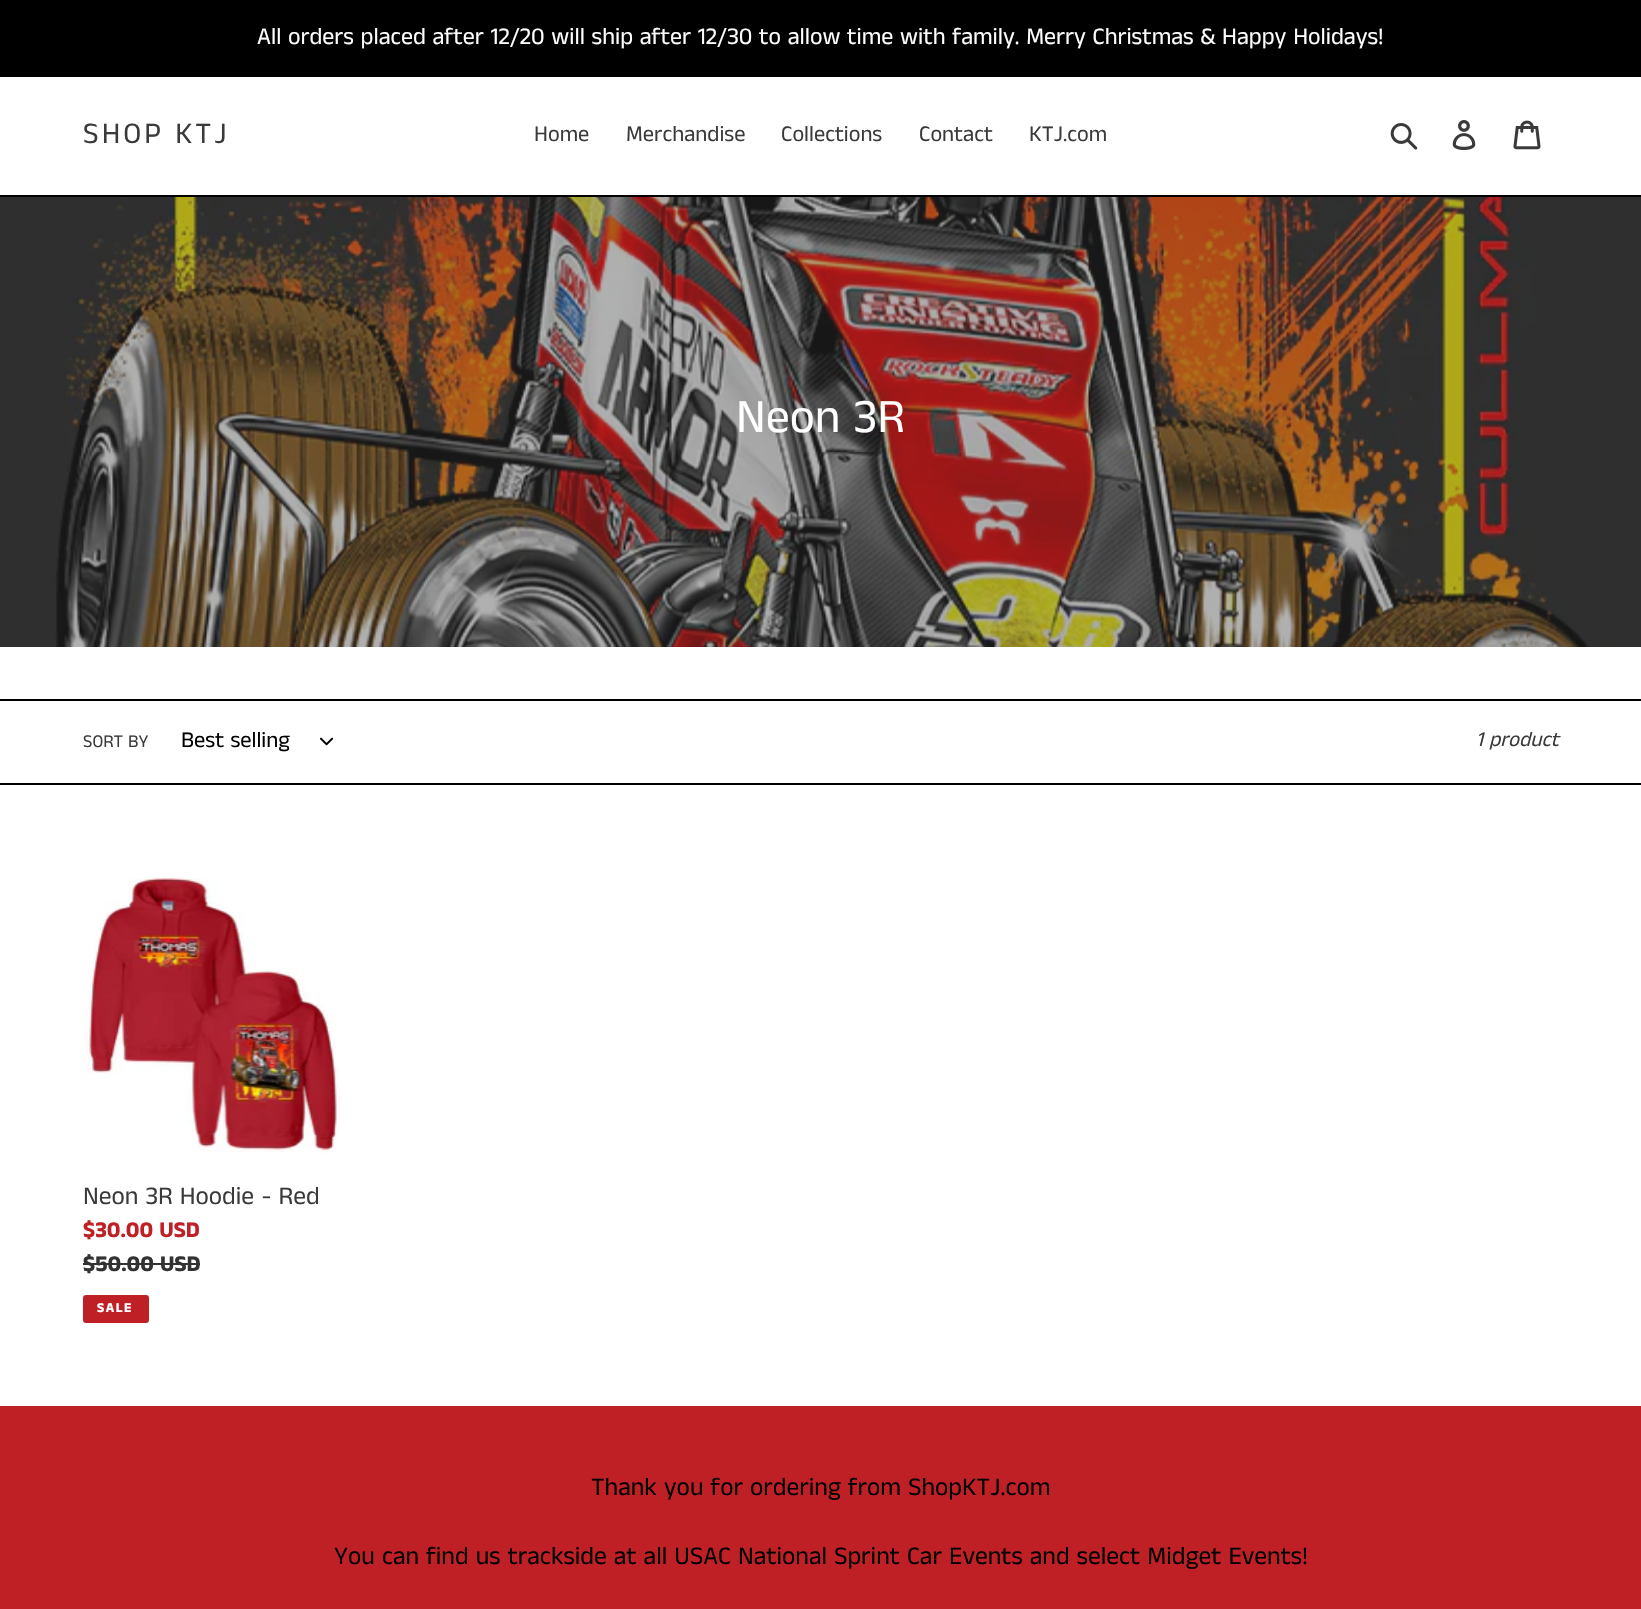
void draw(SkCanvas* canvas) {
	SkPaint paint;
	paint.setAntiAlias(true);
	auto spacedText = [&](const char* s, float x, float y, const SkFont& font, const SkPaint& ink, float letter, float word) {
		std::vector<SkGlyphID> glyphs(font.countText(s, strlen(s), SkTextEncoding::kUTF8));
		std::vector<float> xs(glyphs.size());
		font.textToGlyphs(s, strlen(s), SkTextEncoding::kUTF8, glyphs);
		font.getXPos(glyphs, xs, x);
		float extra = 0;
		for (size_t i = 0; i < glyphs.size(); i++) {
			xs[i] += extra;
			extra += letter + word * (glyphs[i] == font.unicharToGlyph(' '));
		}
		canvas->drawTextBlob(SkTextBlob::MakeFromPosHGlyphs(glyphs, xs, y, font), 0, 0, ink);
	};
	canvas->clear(0xffffffff);
	paint.setColor(0xff000000);
	canvas->drawRect(SkRect::MakeXYWH(0, 0, 1641, 77), paint);
	SkFont f1(fontMgr->matchFamilyStyle("Anek Tamil", SkFontStyle::Normal()), 24);
	f1.setSubpixel(true);
	paint.setColor(0xffffffff);
	canvas->drawString("All orders placed after 12/20 will ship after 12/30 to allow time with family. Merry Christmas & Happy Holidays!", 257, 44, f1, paint);
	paint.setColor(0xff000000);
	canvas->drawRect(SkRect::MakeXYWH(0, 195, 1641, 2), paint);
	SkFont f2(fontMgr->matchFamilyStyle("Anek Tamil", SkFontStyle::Normal()), 30);
	f2.setSubpixel(true);
	paint.setColor(0xff3a3a3a);
	spacedText("SHOP KTJ", 83, 143, f2, paint, 3, 0);
	SkFont f3(fontMgr->matchFamilyStyle("Anek Tamil", SkFontStyle::Normal()), 22.5);
	f3.setSubpixel(true);
	canvas->drawString("Home", 534, 141, f3, paint);
	canvas->drawString("Merchandise", 626, 141, f3, paint);
	canvas->drawString("Collections", 781, 141, f3, paint);
	canvas->drawString("Contact", 919, 141, f3, paint);
	canvas->drawString("KTJ.com", 1029, 141, f3, paint);
	canvas->drawImageRect(SkImages::DeferredFromEncodedData(SkData::MakeFromFileName("img1.png")), SkRect::MakeXYWH(1390, 123, 28, 27), SkSamplingOptions());
	canvas->drawImageRect(SkImages::DeferredFromEncodedData(SkData::MakeFromFileName("img2.png")), SkRect::MakeXYWH(1452, 120, 24, 30), SkSamplingOptions());
	canvas->drawImageRect(SkImages::DeferredFromEncodedData(SkData::MakeFromFileName("img3.png")), SkRect::MakeXYWH(1513, 120, 28, 30), SkSamplingOptions());
	canvas->drawImageRect(SkImages::DeferredFromEncodedData(SkData::MakeFromFileName("img4.png")), SkRect::MakeXYWH(0, 197, 1641, 450), SkSamplingOptions());
	SkFont f4(fontMgr->matchFamilyStyle("Anek Tamil", SkFontStyle::Normal()), 48);
	f4.setSubpixel(true);
	paint.setColor(0xffffffff);
	canvas->drawString("Neon 3R", 736, 432, f4, paint);
	paint.setColor(0xff000000);
	canvas->drawRect(SkRect::MakeXYWH(0, 699, 1641, 2), paint);
	canvas->drawRect(SkRect::MakeXYWH(0, 783, 1641, 2), paint);
	SkFont f5(fontMgr->matchFamilyStyle("Anek Tamil", SkFontStyle::Normal()), 18);
	f5.setSubpixel(true);
	paint.setColor(0xff3a3a3a);
	canvas->drawString("SORT BY", 83, 747, f5, paint);
	paint.setColor(0xff000000);
	canvas->drawString("Best selling", 181, 747, f3, paint);
	canvas->drawImageRect(SkImages::DeferredFromEncodedData(SkData::MakeFromFileName("img5.png")), SkRect::MakeXYWH(320, 737, 14, 9), SkSamplingOptions());
	SkFont f6(fontMgr->matchFamilyStyle("Anek Tamil", SkFontStyle::Italic()), 21);
	f6.setSubpixel(true);
	paint.setColor(0xff3a3a3a);
	canvas->drawString("1 product", 1476, 746, f6, paint);
	canvas->drawImageRect(SkImages::DeferredFromEncodedData(SkData::MakeFromFileName("img6.png")), SkRect::MakeXYWH(82, 877, 259, 276), SkSamplingOptions());
	SkFont f7(fontMgr->matchFamilyStyle("Anek Tamil", SkFontStyle::Normal()), 25.5);
	f7.setSubpixel(true);
	canvas->drawString("Neon 3R Hoodie - Red", 83, 1204, f7, paint);
	SkFont f8(fontMgr->matchFamilyStyle("Anek Tamil", SkFontStyle::Bold()), 22.5);
	f8.setSubpixel(true);
	paint.setColor(0xffbf2026);
	canvas->drawString("$30.00 USD", 83, 1237, f8, paint);
	paint.setColor(0xff333232);
	canvas->drawString("$50.00 USD", 83, 1271, f8, paint);
	canvas->drawRect(SkRect::MakeXYWH(83, 1263, 117, 2), paint);
	paint.setColor(0xffbf2026);
	canvas->drawRoundRect(SkRect::MakeXYWH(84, 1296, 64, 26), 2, 2, paint);
	paint.setStroke(true);
	paint.setStrokeWidth(2);
	canvas->drawRoundRect(SkRect::MakeXYWH(84, 1296, 64, 26), 2, 2, paint);
	SkFont f9(fontMgr->matchFamilyStyle("Anek Tamil", SkFontStyle::Bold()), 13.5);
	f9.setSubpixel(true);
	paint.setStroke(false);
	paint.setColor(0xffffffff);
	spacedText("SALE", 97, 1312, f9, paint, 1.5, 0);
	paint.setColor(0xffbf2026);
	canvas->drawRect(SkRect::MakeXYWH(0, 1406, 1641, 203), paint);
	paint.setColor(0xff000000);
	canvas->drawString("Thank you for ordering from ShopKTJ.com", 591, 1495, f7, paint);
	canvas->drawString("You can find us trackside at all USAC National Sprint Car Events and select Midget Events!", 334, 1564, f7, paint);
}
